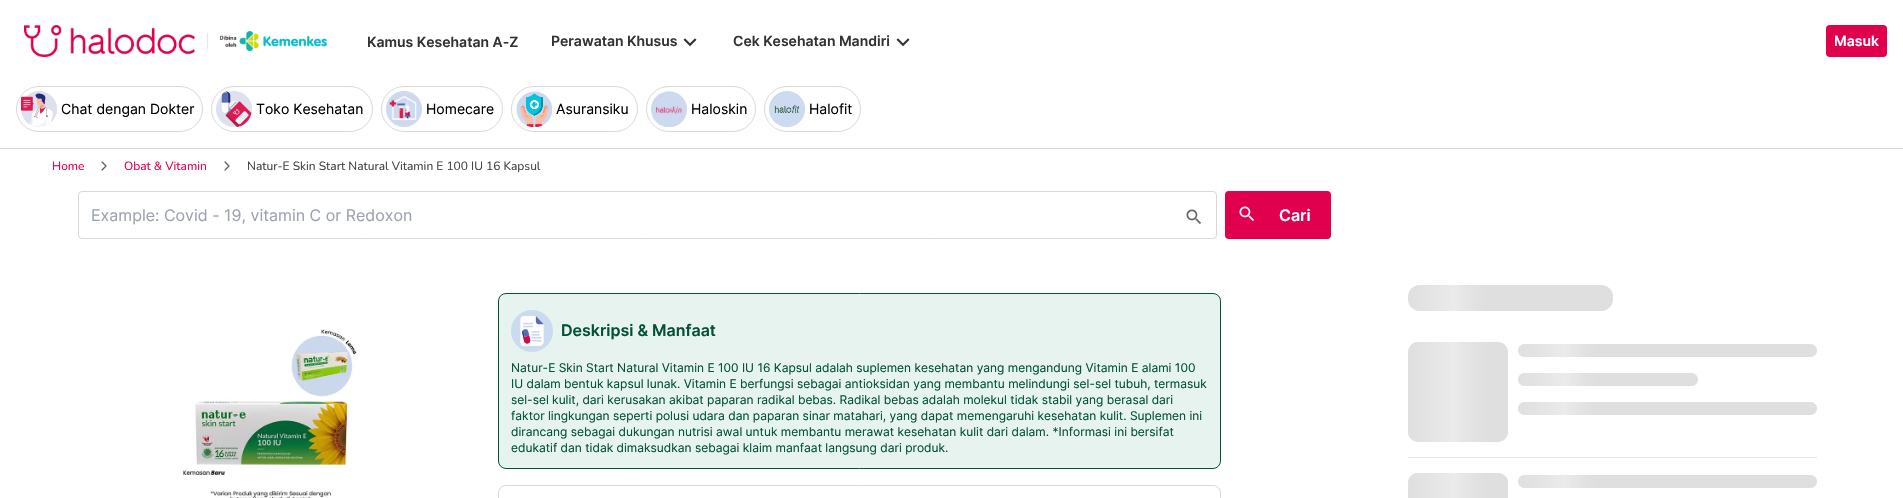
void draw(SkCanvas* canvas) {
	SkPaint paint;
	paint.setAntiAlias(true);
	auto svgPath = [&](const char* data, bool evenOdd = false) {
		SkPath result = *SkParsePath::FromSVGString(data);
		if (evenOdd) result.setFillType(SkPathFillType::kEvenOdd);
		return result;
	};
	canvas->clear(0xffffffff);
	paint.setColor(0xffd9d9d9);
	canvas->drawRect(SkRect::MakeXYWH(0, 148, 1903, 1), paint);
	canvas->drawImageRect(SkImages::DeferredFromEncodedData(SkData::MakeFromFileName("img1.png")), SkRect::MakeXYWH(24, 25, 303, 32), SkSamplingOptions());
	SkFont f1(fontMgr->matchFamilyStyle("Inter", SkFontStyle(600, SkFontStyle::kNormal_Width, SkFontStyle::kUpright_Slant)), 14);
	f1.setSubpixel(true);
	paint.setColor(0xff333333);
	canvas->drawString("Kamus Kesehatan A-Z", 367, 47, f1, paint);
	canvas->drawString("Perawatan Khusus", 551, 46, f1, paint);
	canvas->drawImageRect(SkImages::DeferredFromEncodedData(SkData::MakeFromFileName("img2.png")), SkRect::MakeXYWH(683, 38, 14, 9), SkSamplingOptions());
	canvas->drawString("Cek Kesehatan Mandiri", 733, 46, f1, paint);
	canvas->drawImageRect(SkImages::DeferredFromEncodedData(SkData::MakeFromFileName("img2.png")), SkRect::MakeXYWH(896, 38, 14, 9), SkSamplingOptions());
	paint.setColor(0xffe0004d);
	canvas->drawRoundRect(SkRect::MakeXYWH(1826, 25, 61, 32), 4, 4, paint);
	paint.setColor(0xffffffff);
	canvas->drawString("Masuk", 1834, 46, f1, paint);
	paint.setStroke(true);
	paint.setStrokeWidth(1);
	paint.setColor(0xffd9d9d9);
	canvas->drawRoundRect(SkRect::MakeXYWH(16.5, 86.5, 186, 45), 22.5, 22.5, paint);
	canvas->drawImageRect(SkImages::DeferredFromEncodedData(SkData::MakeFromFileName("img3.png")), SkRect::MakeXYWH(21, 91, 36, 36), SkSamplingOptions());
	SkFont f2(fontMgr->matchFamilyStyle("Inter", SkFontStyle::Normal()), 14);
	f2.setSubpixel(true);
	paint.setStroke(false);
	paint.setColor(0xff000000);
	canvas->drawString("Chat dengan Dokter", 61, 114, f2, paint);
	paint.setStroke(true);
	paint.setColor(0xffd9d9d9);
	canvas->drawRoundRect(SkRect::MakeXYWH(211.5, 86.5, 161, 45), 22.5, 22.5, paint);
	canvas->drawImageRect(SkImages::DeferredFromEncodedData(SkData::MakeFromFileName("img4.png")), SkRect::MakeXYWH(216, 91, 36, 36), SkSamplingOptions());
	paint.setStroke(false);
	paint.setColor(0xff000000);
	canvas->drawString("Toko Kesehatan", 256, 114, f2, paint);
	paint.setStroke(true);
	paint.setColor(0xffd9d9d9);
	canvas->drawRoundRect(SkRect::MakeXYWH(381.5, 86.5, 121, 45), 22.5, 22.5, paint);
	canvas->drawImageRect(SkImages::DeferredFromEncodedData(SkData::MakeFromFileName("img5.png")), SkRect::MakeXYWH(386, 91, 36, 36), SkSamplingOptions());
	paint.setStroke(false);
	paint.setColor(0xff000000);
	canvas->drawString("Homecare", 426, 114, f2, paint);
	paint.setStroke(true);
	paint.setColor(0xffd9d9d9);
	canvas->drawRoundRect(SkRect::MakeXYWH(511.5, 86.5, 126, 45), 22.5, 22.5, paint);
	canvas->drawImageRect(SkImages::DeferredFromEncodedData(SkData::MakeFromFileName("img6.png")), SkRect::MakeXYWH(516, 91, 36, 36), SkSamplingOptions());
	paint.setStroke(false);
	paint.setColor(0xff000000);
	canvas->drawString("Asuransiku", 556, 114, f2, paint);
	paint.setStroke(true);
	paint.setColor(0xffd9d9d9);
	canvas->drawRoundRect(SkRect::MakeXYWH(646.5, 86.5, 109, 45), 22.5, 22.5, paint);
	canvas->drawImageRect(SkImages::DeferredFromEncodedData(SkData::MakeFromFileName("img7.png")), SkRect::MakeXYWH(651, 91, 36, 36), SkSamplingOptions());
	paint.setStroke(false);
	paint.setColor(0xff000000);
	canvas->drawString("Haloskin", 691, 114, f2, paint);
	paint.setStroke(true);
	paint.setColor(0xffd9d9d9);
	canvas->drawRoundRect(SkRect::MakeXYWH(764.5, 86.5, 96, 45), 22.5, 22.5, paint);
	canvas->drawImageRect(SkImages::DeferredFromEncodedData(SkData::MakeFromFileName("img8.png")), SkRect::MakeXYWH(769, 91, 36, 36), SkSamplingOptions());
	paint.setStroke(false);
	paint.setColor(0xff000000);
	canvas->drawString("Halofit", 809, 114, f2, paint);
	SkFont f3(fontMgr->matchFamilyStyle("Nunito", SkFontStyle::Normal()), 12);
	f3.setSubpixel(true);
	paint.setColor(0xffe0004d);
	canvas->drawString("Home", 52, 170, f3, paint);
	canvas->drawImageRect(SkImages::DeferredFromEncodedData(SkData::MakeFromFileName("img9.png")), SkRect::MakeXYWH(101, 161, 6, 10), SkSamplingOptions());
	canvas->drawString("Obat & Vitamin", 124, 170, f3, paint);
	canvas->drawImageRect(SkImages::DeferredFromEncodedData(SkData::MakeFromFileName("img9.png")), SkRect::MakeXYWH(224, 161, 6, 10), SkSamplingOptions());
	paint.setColor(0xff424242);
	canvas->drawString("Natur-E Skin Start Natural Vitamin E 100 IU 16 Kapsul", 247, 170, f3, paint);
	paint.setStroke(true);
	paint.setColor(0xffd9d9d9);
	canvas->drawRoundRect(SkRect::MakeXYWH(78.5, 191.5, 1138, 47), 3.5, 3.5, paint);
	SkFont f4(fontMgr->matchFamilyStyle("Inter", SkFontStyle::Normal()), 16);
	f4.setSubpixel(true);
	paint.setStroke(false);
	paint.setColor(0xff9ca3af);
	canvas->drawString("Example: Covid - 19, vitamin C or Redoxon", 91, 221, f4, paint);
	canvas->drawImageRect(SkImages::DeferredFromEncodedData(SkData::MakeFromFileName("img10.png")), SkRect::MakeXYWH(1186, 209, 15, 15), SkSamplingOptions());
	paint.setColor(0xffe0004d);
	canvas->drawRoundRect(SkRect::MakeXYWH(1225, 191, 106, 48), 4, 4, paint);
	canvas->drawImageRect(SkImages::DeferredFromEncodedData(SkData::MakeFromFileName("img11.png")), SkRect::MakeXYWH(1239, 206, 15, 15), SkSamplingOptions());
	SkFont f5(fontMgr->matchFamilyStyle("Inter", SkFontStyle(600, SkFontStyle::kNormal_Width, SkFontStyle::kUpright_Slant)), 16);
	f5.setSubpixel(true);
	paint.setColor(0xffffffff);
	canvas->drawString("Cari", 1279, 221, f5, paint);
	canvas->drawImageRect(SkImages::DeferredFromEncodedData(SkData::MakeFromFileName("img12.png")), SkRect::MakeXYWH(182, 329, 175, 169), SkSamplingOptions());
	paint.setColor(0xffe6f3ef);
	canvas->drawRoundRect(SkRect::MakeXYWH(498.5, 293.5, 722, 175), 7.5, 7.5, paint);
	paint.setStroke(true);
	paint.setColor(0xff045136);
	canvas->drawRoundRect(SkRect::MakeXYWH(498.5, 293.5, 722, 175), 7.5, 7.5, paint);
	canvas->drawImageRect(SkImages::DeferredFromEncodedData(SkData::MakeFromFileName("img13.png")), SkRect::MakeXYWH(511, 310, 42, 42), SkSamplingOptions());
	paint.setStroke(false);
	canvas->drawString("Deskripsi & Manfaat", 561, 336, f5, paint);
	SkFont f6(fontMgr->matchFamilyStyle("Inter", SkFontStyle::Normal()), 12);
	f6.setSubpixel(true);
	canvas->drawString("Natur-E Skin Start Natural Vitamin E 100 IU 16 Kapsul adalah suplemen kesehatan yang mengandung Vitamin E alami 100", 511, 372, f6, paint);
	canvas->drawString("IU dalam bentuk kapsul lunak. Vitamin E berfungsi sebagai antioksidan yang membantu melindungi sel-sel tubuh, termasuk", 511, 388, f6, paint);
	canvas->drawString("sel-sel kulit, dari kerusakan akibat paparan radikal bebas. Radikal bebas adalah molekul tidak stabil yang berasal dari", 511, 404, f6, paint);
	canvas->drawString("faktor lingkungan seperti polusi udara dan paparan sinar matahari, yang dapat memengaruhi kesehatan kulit. Suplemen ini", 511, 420, f6, paint);
	canvas->drawString("dirancang sebagai dukungan nutrisi awal untuk membantu merawat kesehatan kulit dari dalam. *Informasi ini bersifat", 511, 436, f6, paint);
	canvas->drawString("edukatif dan tidak dimaksudkan sebagai klaim manfaat langsung dari produk.", 511, 452, f6, paint);
	paint.setStroke(true);
	paint.setColor(0xffd9d9d9);
	canvas->drawRoundRect(SkRect::MakeXYWH(498.5, 485.5, 722, 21), 7.5, 7.5, paint);
	paint.setStroke(false);
	paint.setColor(0xffe4e4e5);
	canvas->drawRoundRect(SkRect::MakeXYWH(1408, 285, 205, 26), 12, 12, paint);
	{
		const SkColor colors[] = {0xa3dddddd, 0xf0ecebeb, 0xa3dddddd};
		const float stops[] = {0, 0.03, 0.05};
		const SkPoint ends[] = {{1408, 298}, {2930, 298}};
		paint.setShader(SkGradientShader::MakeLinear(ends, colors, stops, 3, SkTileMode::kClamp));
		paint.setAlpha(255);
	}
	canvas->drawRoundRect(SkRect::MakeXYWH(1408, 285, 205, 26), 12, 12, paint);
	paint.setShader(nullptr);
	paint.setColor(0xffe5e5e5);
	canvas->drawRect(SkRect::MakeXYWH(1408, 457, 409, 1), paint);
	paint.setColor(0xffe4e4e5);
	canvas->drawRoundRect(SkRect::MakeXYWH(1408, 342, 100, 100), 10, 10, paint);
	{
		const SkColor colors[] = {0xa3dddddd, 0xf0ecebeb, 0xa3dddddd};
		const float stops[] = {0, 0.03, 0.05};
		const SkPoint ends[] = {{1408, 392}, {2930, 392}};
		paint.setShader(SkGradientShader::MakeLinear(ends, colors, stops, 3, SkTileMode::kClamp));
		paint.setAlpha(255);
	}
	canvas->drawRoundRect(SkRect::MakeXYWH(1408, 342, 100, 100), 10, 10, paint);
	paint.setShader(nullptr);
	paint.setColor(0xffe4e4e5);
	canvas->drawRoundRect(SkRect::MakeXYWH(1518, 344, 299, 13), 6.5, 6.5, paint);
	{
		const SkColor colors[] = {0xa3dddddd, 0xf0ecebeb, 0xa3dddddd};
		const float stops[] = {0, 0.03, 0.05};
		const SkPoint ends[] = {{1518, 351}, {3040, 350}};
		paint.setShader(SkGradientShader::MakeLinear(ends, colors, stops, 3, SkTileMode::kClamp));
		paint.setAlpha(255);
	}
	canvas->drawRoundRect(SkRect::MakeXYWH(1518, 344, 299, 13), 6.5, 6.5, paint);
	paint.setShader(nullptr);
	paint.setColor(0xffe4e4e5);
	canvas->drawRoundRect(SkRect::MakeXYWH(1518, 373, 180, 13), 6.5, 6.5, paint);
	{
		const SkColor colors[] = {0xa3dddddd, 0xf0ecebeb, 0xa3dddddd};
		const float stops[] = {0, 0.03, 0.05};
		const SkPoint ends[] = {{1518, 380}, {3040, 379}};
		paint.setShader(SkGradientShader::MakeLinear(ends, colors, stops, 3, SkTileMode::kClamp));
		paint.setAlpha(255);
	}
	canvas->drawRoundRect(SkRect::MakeXYWH(1518, 373, 180, 13), 6.5, 6.5, paint);
	paint.setShader(nullptr);
	paint.setColor(0xffe4e4e5);
	canvas->drawRoundRect(SkRect::MakeXYWH(1518, 402, 299, 13), 6.5, 6.5, paint);
	{
		const SkColor colors[] = {0xa3dddddd, 0xf0ecebeb, 0xa3dddddd};
		const float stops[] = {0, 0.03, 0.05};
		const SkPoint ends[] = {{1518, 409}, {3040, 408}};
		paint.setShader(SkGradientShader::MakeLinear(ends, colors, stops, 3, SkTileMode::kClamp));
		paint.setAlpha(255);
	}
	canvas->drawRoundRect(SkRect::MakeXYWH(1518, 402, 299, 13), 6.5, 6.5, paint);
	paint.setShader(nullptr);
	paint.setColor(0xffe4e4e5);
	canvas->drawPath(svgPath("M1418 473H1498C1503.5 473 1508 477.5 1508 483V498H1408V483C1408 477.5 1412.5 473 1418 473Z"), paint);
	{
		const SkColor colors[] = {0xa3dddddd, 0xf0ecebeb, 0xa3dddddd};
		const float stops[] = {0, 0.03, 0.05};
		const SkPoint ends[] = {{1408, 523}, {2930, 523}};
		paint.setShader(SkGradientShader::MakeLinear(ends, colors, stops, 3, SkTileMode::kClamp));
		paint.setAlpha(255);
	}
	canvas->drawPath(svgPath("M1418 473H1498C1503.5 473 1508 477.5 1508 483V498H1408V483C1408 477.5 1412.5 473 1418 473Z"), paint);
	paint.setShader(nullptr);
	paint.setColor(0xffe4e4e5);
	canvas->drawRoundRect(SkRect::MakeXYWH(1518, 475, 299, 13), 6.5, 6.5, paint);
	{
		const SkColor colors[] = {0xa3dddddd, 0xf0ecebeb, 0xa3dddddd};
		const float stops[] = {0, 0.03, 0.05};
		const SkPoint ends[] = {{1518, 482}, {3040, 481}};
		paint.setShader(SkGradientShader::MakeLinear(ends, colors, stops, 3, SkTileMode::kClamp));
		paint.setAlpha(255);
	}
	canvas->drawRoundRect(SkRect::MakeXYWH(1518, 475, 299, 13), 6.5, 6.5, paint);
}
